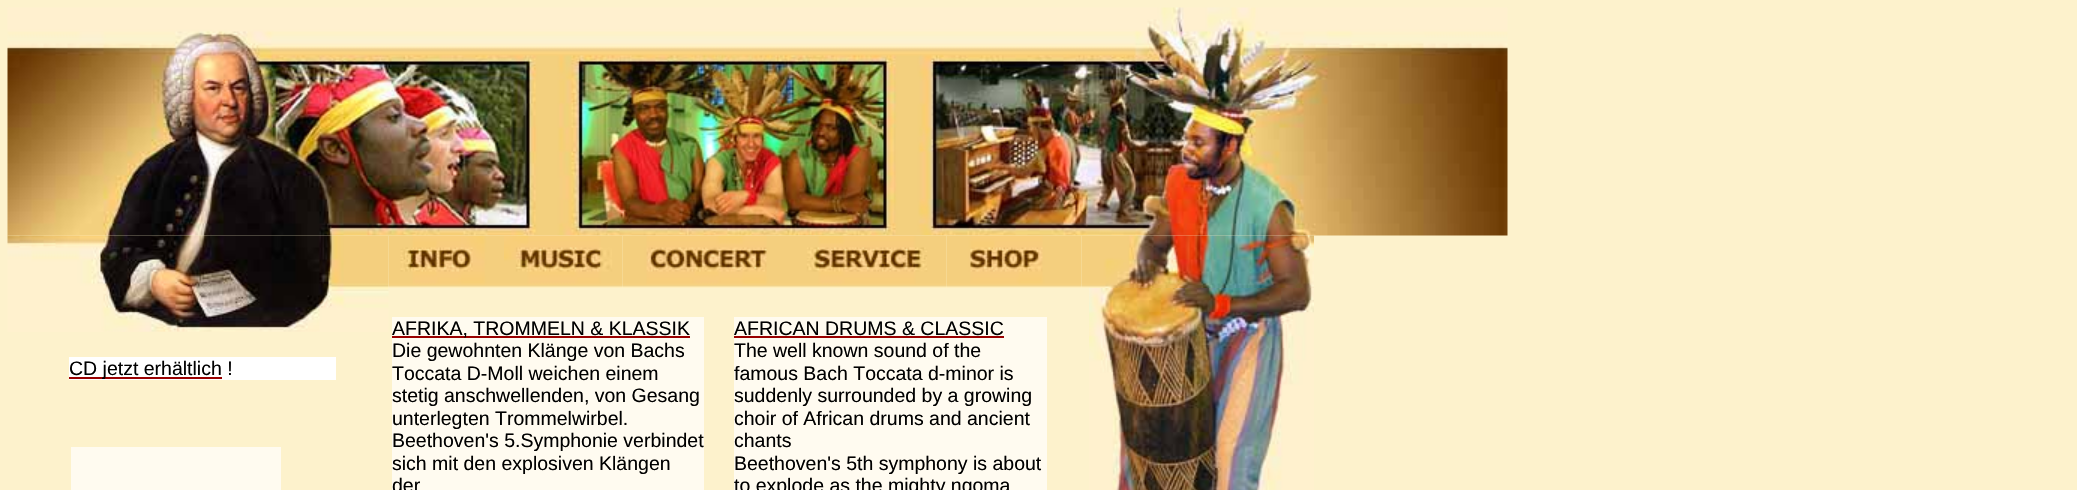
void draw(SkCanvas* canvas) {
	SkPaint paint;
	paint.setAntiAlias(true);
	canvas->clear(0xfffdf2cc);
	canvas->drawImageRect(SkImages::DeferredFromEncodedData(SkData::MakeFromFileName("img1.png")), SkRect::MakeXYWH(7, 7, 1501, 229), SkSamplingOptions());
	canvas->drawImageRect(SkImages::DeferredFromEncodedData(SkData::MakeFromFileName("img2.png")), SkRect::MakeXYWH(7, 235, 382, 97), SkSamplingOptions());
	paint.setColor(0xffffffff);
	canvas->drawRect(SkRect::MakeXYWH(69, 357, 267, 23), paint);
	paint.setColor(0xff990000);
	canvas->drawRect(SkRect::MakeXYWH(69, 377, 153, 2), paint);
	SkFont f1(fontMgr->matchFamilyStyle("Liberation Sans", SkFontStyle::Normal()), 19.5);
	f1.setSubpixel(true);
	paint.setColor(0xff000000);
	canvas->drawString("CD jetzt erhältlich !", 69, 375, f1, paint);
	paint.setColor(0xfffffbf0);
	canvas->drawRect(SkRect::MakeXYWH(71, 447, 210, 43), paint);
	canvas->drawImageRect(SkImages::DeferredFromEncodedData(SkData::MakeFromFileName("img3.png")), SkRect::MakeXYWH(388, 235, 116, 53), SkSamplingOptions());
	canvas->drawImageRect(SkImages::DeferredFromEncodedData(SkData::MakeFromFileName("img4.png")), SkRect::MakeXYWH(504, 235, 119, 53), SkSamplingOptions());
	canvas->drawImageRect(SkImages::DeferredFromEncodedData(SkData::MakeFromFileName("img5.png")), SkRect::MakeXYWH(622, 235, 173, 53), SkSamplingOptions());
	canvas->drawImageRect(SkImages::DeferredFromEncodedData(SkData::MakeFromFileName("img6.png")), SkRect::MakeXYWH(795, 235, 152, 53), SkSamplingOptions());
	canvas->drawImageRect(SkImages::DeferredFromEncodedData(SkData::MakeFromFileName("img7.png")), SkRect::MakeXYWH(946, 235, 136, 53), SkSamplingOptions());
	canvas->drawRect(SkRect::MakeXYWH(392, 317, 312, 173), paint);
	paint.setColor(0xff990000);
	canvas->drawRect(SkRect::MakeXYWH(392, 336, 298, 2), paint);
	paint.setColor(0xff000000);
	canvas->drawString("AFRIKA, TROMMELN & KLASSIK", 392, 335, f1, paint);
	canvas->drawString("Die gewohnten Klänge von Bachs", 392, 357, f1, paint);
	canvas->drawString("Toccata D-Moll weichen einem", 392, 380, f1, paint);
	canvas->drawString("stetig anschwellenden, von Gesang", 392, 402, f1, paint);
	canvas->drawString("unterlegten Trommelwirbel.", 392, 425, f1, paint);
	canvas->drawString("Beethoven's 5.Symphonie verbindet", 392, 447, f1, paint);
	canvas->drawString("sich mit den explosiven Klängen", 392, 470, f1, paint);
	canvas->drawString("der", 392, 492, f1, paint);
	paint.setColor(0xfffffbf0);
	canvas->drawRect(SkRect::MakeXYWH(734, 317, 313, 173), paint);
	paint.setColor(0xff000000);
	canvas->drawString("AFRICAN DRUMS & CLASSIC", 734, 335, f1, paint);
	paint.setColor(0xff990000);
	canvas->drawRect(SkRect::MakeXYWH(734, 336, 270, 2), paint);
	paint.setColor(0xff000000);
	canvas->drawString("The well known sound of the", 734, 357, f1, paint);
	canvas->drawString("famous Bach Toccata d-minor is", 734, 380, f1, paint);
	canvas->drawString("suddenly surrounded by a growing", 734, 402, f1, paint);
	canvas->drawString("choir of African drums and ancient", 734, 425, f1, paint);
	canvas->drawString("chants", 734, 447, f1, paint);
	canvas->drawString("Beethoven's 5th symphony is about", 734, 470, f1, paint);
	canvas->drawString("to explode as the mighty ngoma", 734, 492, f1, paint);
	canvas->drawImageRect(SkImages::DeferredFromEncodedData(SkData::MakeFromFileName("img8.png")), SkRect::MakeXYWH(1081, 235, 233, 53), SkSamplingOptions());
	canvas->drawImageRect(SkImages::DeferredFromEncodedData(SkData::MakeFromFileName("img9.png")), SkRect::MakeXYWH(1089, 288, 225, 202), SkSamplingOptions());
}
